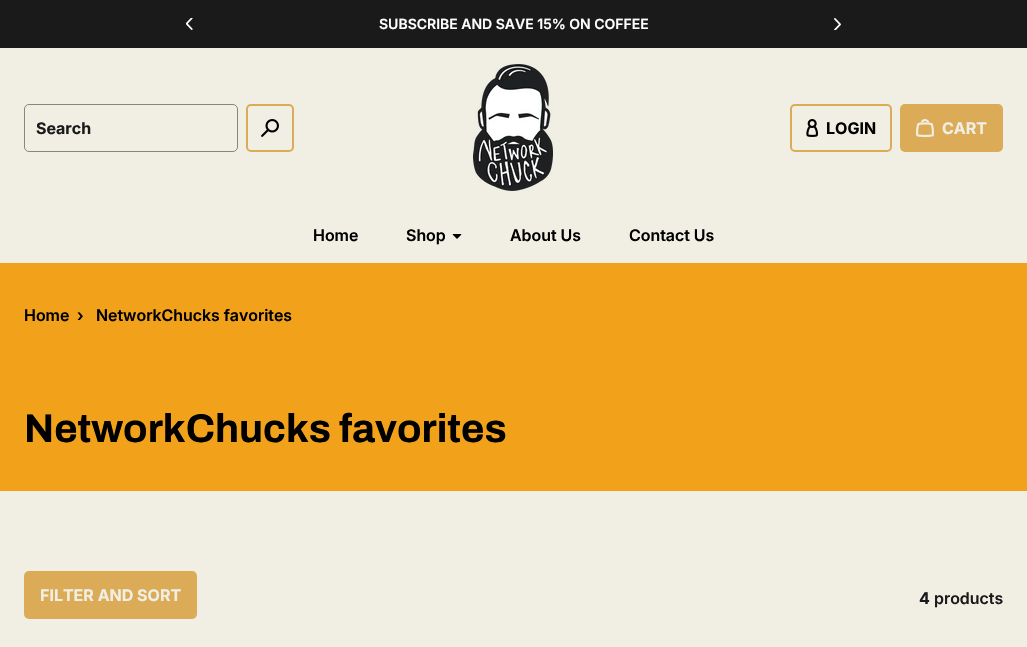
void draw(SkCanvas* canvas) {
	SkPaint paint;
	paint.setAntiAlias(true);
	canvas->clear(0xff1a1a1a);
	canvas->drawImageRect(SkImages::DeferredFromEncodedData(SkData::MakeFromFileName("img1.png")), SkRect::MakeXYWH(186, 18, 7, 12), SkSamplingOptions());
	SkFont f1(fontMgr->matchFamilyStyle("Inter", SkFontStyle(600, SkFontStyle::kNormal_Width, SkFontStyle::kUpright_Slant)), 14);
	f1.setSubpixel(true);
	paint.setColor(0xffffffff);
	canvas->drawString("SUBSCRIBE AND SAVE 15% ON COFFEE", 379, 29, f1, paint);
	canvas->drawImageRect(SkImages::DeferredFromEncodedData(SkData::MakeFromFileName("img2.png")), SkRect::MakeXYWH(834, 18, 7, 12), SkSamplingOptions());
	paint.setColor(0xfff1efe4);
	canvas->drawRect(SkRect::MakeXYWH(0, 48, 1027, 215), paint);
	paint.setStroke(true);
	paint.setStrokeWidth(1);
	paint.setColor(0xff86857f);
	canvas->drawRoundRect(SkRect::MakeXYWH(24.5, 104.5, 213, 47), 4.5, 4.5, paint);
	SkFont f2(fontMgr->matchFamilyStyle("Inter", SkFontStyle::Bold()), 16);
	f2.setSubpixel(true);
	paint.setStroke(false);
	paint.setColor(0xff1a1a1a);
	canvas->drawString("Search", 36, 134, f2, paint);
	paint.setStroke(true);
	paint.setStrokeWidth(2);
	paint.setColor(0xffdcab58);
	canvas->drawRoundRect(SkRect::MakeXYWH(247, 105, 46, 46), 4, 4, paint);
	canvas->drawImageRect(SkImages::DeferredFromEncodedData(SkData::MakeFromFileName("img3.png")), SkRect::MakeXYWH(261, 119, 18, 18), SkSamplingOptions());
	canvas->drawImageRect(SkImages::DeferredFromEncodedData(SkData::MakeFromFileName("img4.png")), SkRect::MakeXYWH(473, 64, 80, 127), SkSamplingOptions());
	canvas->drawRoundRect(SkRect::MakeXYWH(791, 105, 100, 46), 4, 4, paint);
	canvas->drawImageRect(SkImages::DeferredFromEncodedData(SkData::MakeFromFileName("img5.png")), SkRect::MakeXYWH(806, 119, 12, 18), SkSamplingOptions());
	paint.setStroke(false);
	paint.setColor(0xff000000);
	canvas->drawString("LOGIN", 826, 134, f2, paint);
	paint.setColor(0xffdcab58);
	canvas->drawRoundRect(SkRect::MakeXYWH(900, 104, 103, 48), 5, 5, paint);
	canvas->drawImageRect(SkImages::DeferredFromEncodedData(SkData::MakeFromFileName("img6.png")), SkRect::MakeXYWH(916, 119, 18, 18), SkSamplingOptions());
	paint.setColor(0xfff1efe4);
	canvas->drawString("CART", 942, 134, f2, paint);
	SkFont f3(fontMgr->matchFamilyStyle("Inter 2", SkFontStyle(600, SkFontStyle::kNormal_Width, SkFontStyle::kUpright_Slant)), 16);
	f3.setSubpixel(true);
	paint.setColor(0xff000000);
	canvas->drawString("Home", 313, 241, f3, paint);
	canvas->drawString("Shop", 406, 241, f3, paint);
	canvas->drawImageRect(SkImages::DeferredFromEncodedData(SkData::MakeFromFileName("img7.png")), SkRect::MakeXYWH(452, 234, 10, 5), SkSamplingOptions());
	canvas->drawString("About Us", 510, 241, f3, paint);
	canvas->drawString("Contact Us", 629, 241, f3, paint);
	paint.setColor(0xfff1a21a);
	canvas->drawRect(SkRect::MakeXYWH(0, 263, 1027, 228), paint);
	paint.setColor(0xff000000);
	canvas->drawString("Home", 24, 321, f3, paint);
	canvas->drawString("›", 77, 321, f3, paint);
	canvas->drawString("NetworkChucks favorites", 96, 321, f3, paint);
	SkFont f4(fontMgr->matchFamilyStyle("Archivo", SkFontStyle::Bold()), 40);
	f4.setSubpixel(true);
	canvas->drawString("NetworkChucks favorites", 24, 442, f4, paint);
	paint.setColor(0xfff1efe4);
	canvas->drawRect(SkRect::MakeXYWH(0, 491, 1027, 156), paint);
	paint.setColor(0xffdcab58);
	canvas->drawRoundRect(SkRect::MakeXYWH(24, 571, 173, 48), 5, 5, paint);
	paint.setColor(0xfff1efe4);
	canvas->drawString("FILTER AND SORT", 40, 601, f2, paint);
	paint.setColor(0xff1a1a1a);
	canvas->drawString("4", 919, 604, f2, paint);
	canvas->drawString("products", 934, 604, f3, paint);
}
